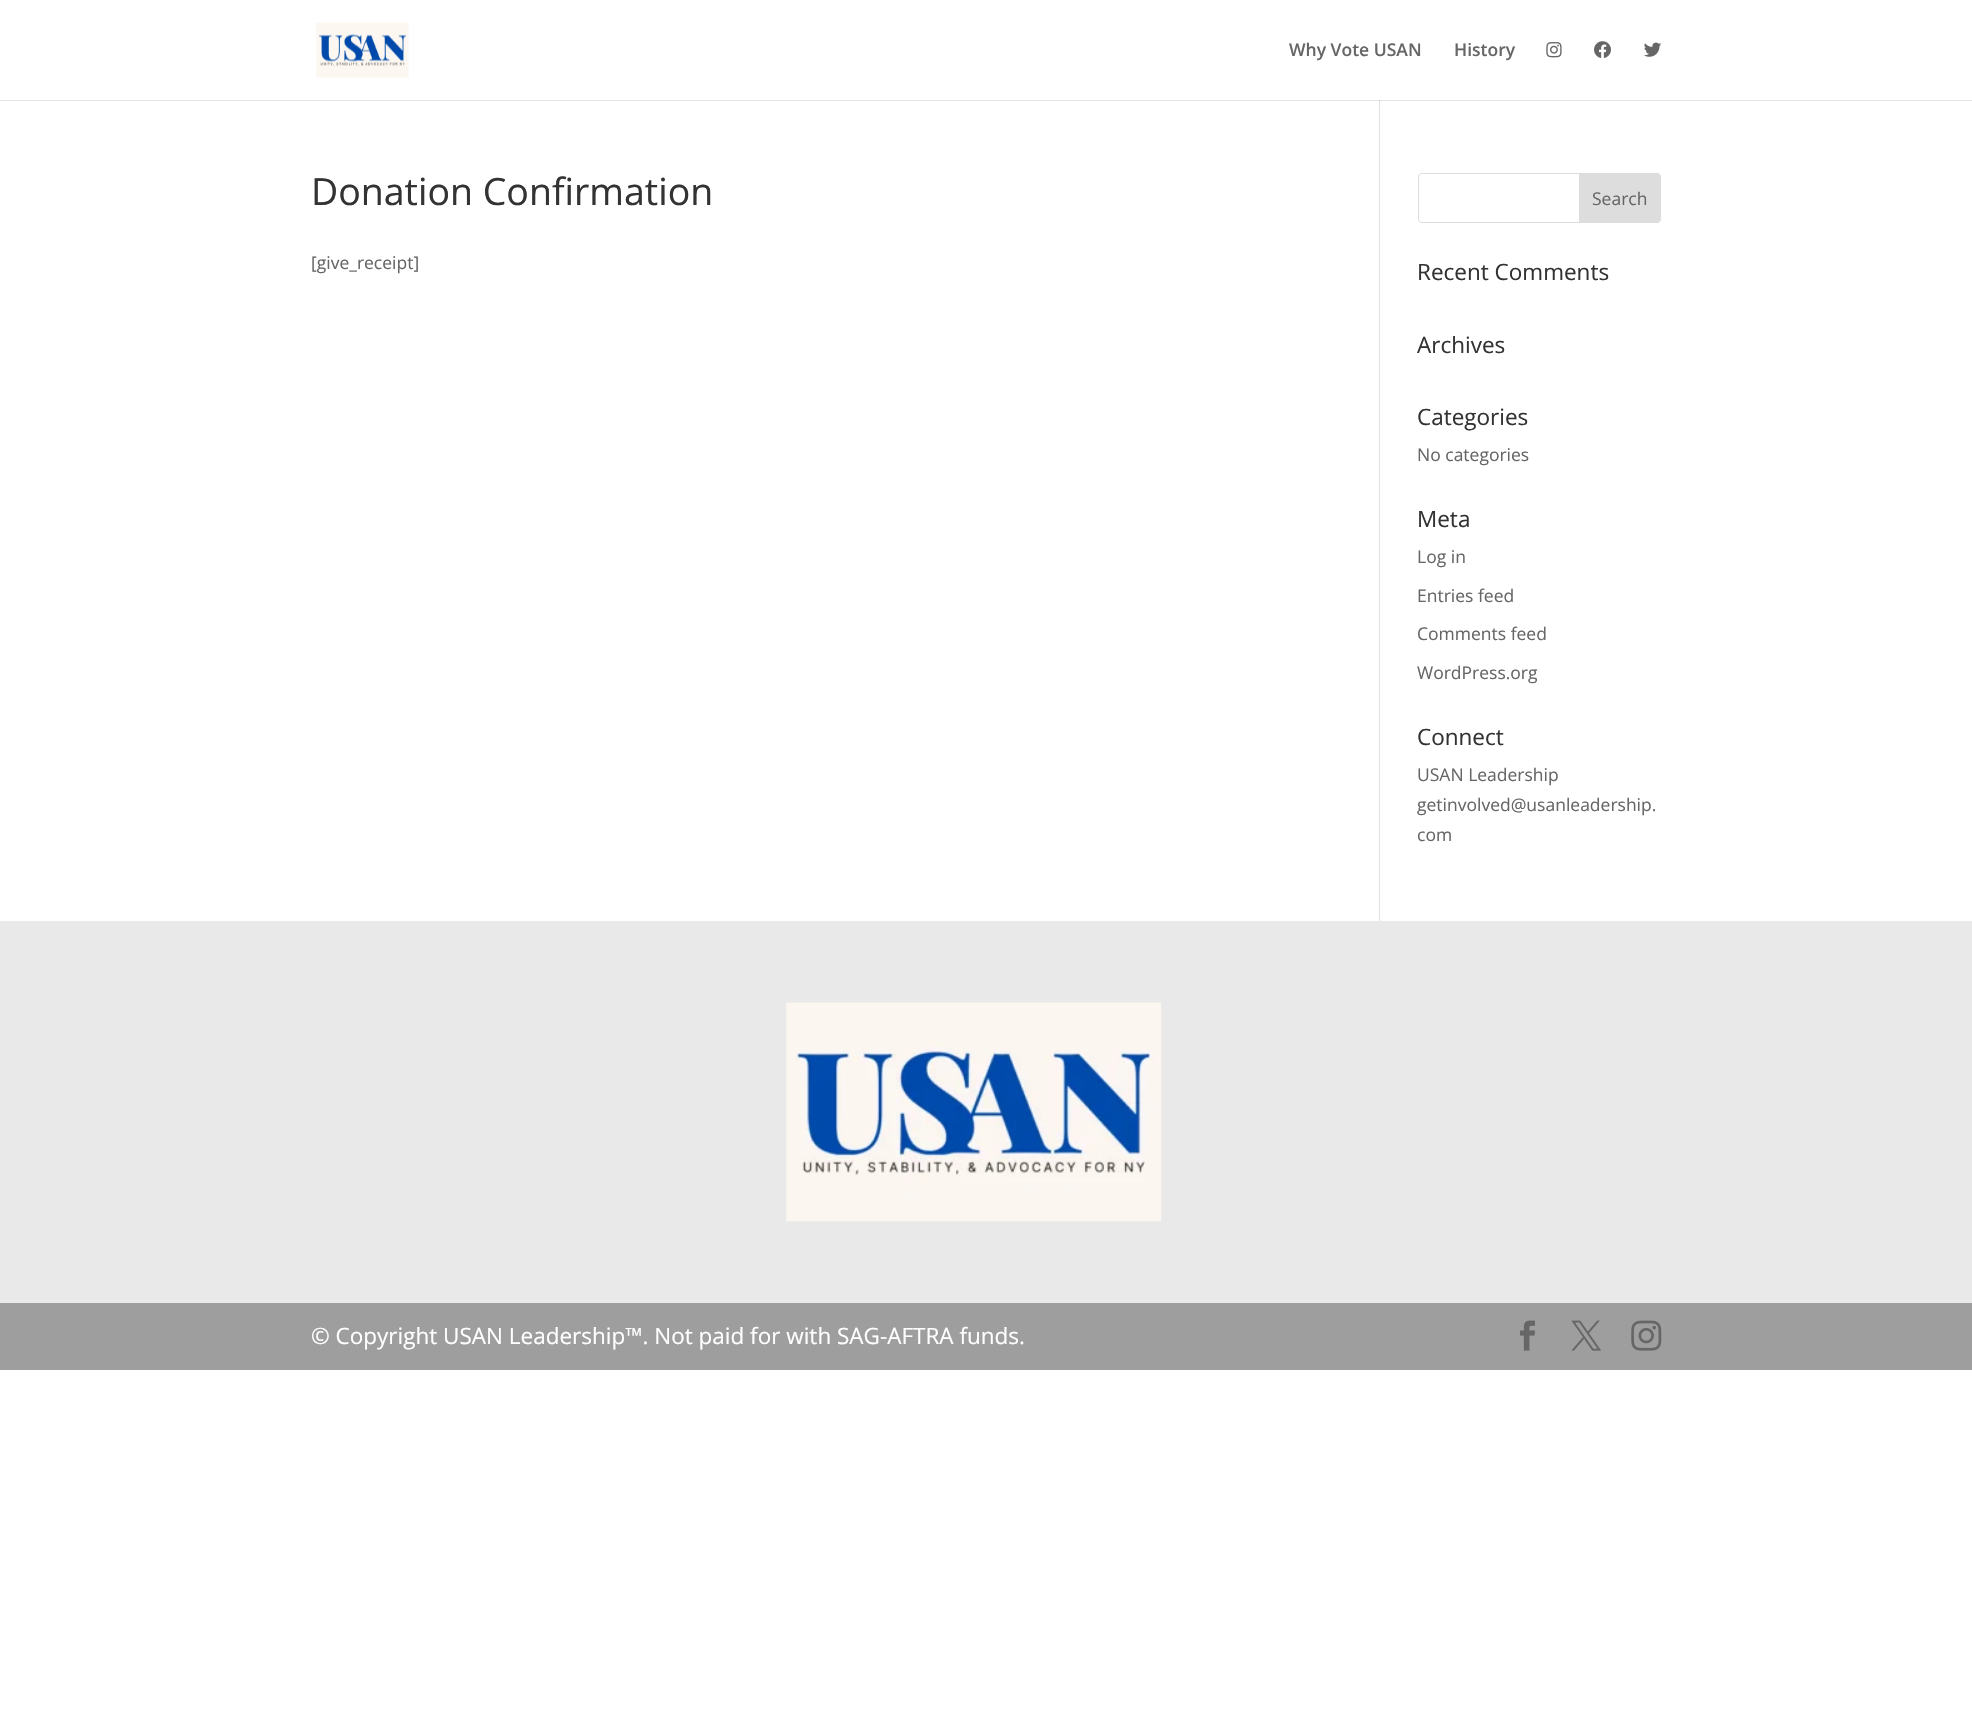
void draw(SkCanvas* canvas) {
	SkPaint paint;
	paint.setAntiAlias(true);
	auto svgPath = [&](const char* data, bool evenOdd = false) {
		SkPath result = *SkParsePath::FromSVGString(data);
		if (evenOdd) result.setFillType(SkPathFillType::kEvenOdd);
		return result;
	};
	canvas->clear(0xffffffff);
	paint.setColor(0xffe2e2e2);
	canvas->drawRect(SkRect::MakeXYWH(1379, 100, 1, 821), paint);
	paint.setColor(0x1a000000);
	canvas->drawPath(svgPath("M0 100V101H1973V1H1972V100Z"), paint);
	canvas->drawImageRect(SkImages::DeferredFromEncodedData(SkData::MakeFromFileName("img1.png")), SkRect::MakeXYWH(316, 22, 93, 56), SkSamplingOptions());
	SkFont f1(fontMgr->matchFamilyStyle("Open Sans", SkFontStyle(600, SkFontStyle::kNormal_Width, SkFontStyle::kUpright_Slant)), 17.5);
	f1.setSubpixel(true);
	paint.setColor(0xff666666);
	canvas->drawString("Why Vote USAN", 1289, 56, f1, paint);
	canvas->drawString("History", 1454, 56, f1, paint);
	canvas->drawImageRect(SkImages::DeferredFromEncodedData(SkData::MakeFromFileName("img2.png")), SkRect::MakeXYWH(1546, 42, 16, 16), SkSamplingOptions());
	canvas->drawImageRect(SkImages::DeferredFromEncodedData(SkData::MakeFromFileName("img3.png")), SkRect::MakeXYWH(1594, 41, 17, 17), SkSamplingOptions());
	canvas->drawImageRect(SkImages::DeferredFromEncodedData(SkData::MakeFromFileName("img4.png")), SkRect::MakeXYWH(1644, 42, 17, 15), SkSamplingOptions());
	SkFont f2(fontMgr->matchFamilyStyle("Open Sans", SkFontStyle::Normal()), 37.5);
	f2.setSubpixel(true);
	paint.setColor(0xff333333);
	canvas->drawString("Donation Confirmation", 311, 205, f2, paint);
	SkFont f3(fontMgr->matchFamilyStyle("Open Sans", SkFontStyle::Normal()), 17.5);
	f3.setSubpixel(true);
	paint.setColor(0xff666666);
	canvas->drawString("[give_receipt]", 311, 269, f3, paint);
	paint.setStroke(true);
	paint.setStrokeWidth(1);
	paint.setColor(0xffdddddd);
	canvas->drawRoundRect(SkRect::MakeXYWH(1418.5, 173.5, 242, 49), 3.5, 3.5, paint);
	paint.setStroke(false);
	canvas->drawPath(svgPath("M1579.5 173.5H1657C1659 173.5 1660.5 175 1660.5 177V219C1660.5 221 1659 222.5 1657 222.5H1579.5Z"), paint);
	paint.setStroke(true);
	canvas->drawPath(svgPath("M1579.5 173.5H1657C1659 173.5 1660.5 175 1660.5 177V219C1660.5 221 1659 222.5 1657 222.5H1579.5Z"), paint);
	paint.setStroke(false);
	paint.setColor(0xff666666);
	canvas->drawString("Search", 1592, 205, f3, paint);
	SkFont f4(fontMgr->matchFamilyStyle("Open Sans", SkFontStyle::Normal()), 22.5);
	f4.setSubpixel(true);
	paint.setColor(0xff333333);
	canvas->drawString("Recent Comments", 1417, 280, f4, paint);
	canvas->drawString("Archives", 1417, 353, f4, paint);
	canvas->drawString("Categories", 1417, 425, f4, paint);
	paint.setColor(0xff666666);
	canvas->drawString("No categories", 1417, 461, f3, paint);
	paint.setColor(0xff333333);
	canvas->drawString("Meta", 1417, 527, f4, paint);
	paint.setColor(0xff666666);
	canvas->drawString("Log in", 1417, 563, f3, paint);
	canvas->drawString("Entries feed", 1417, 602, f3, paint);
	canvas->drawString("Comments feed", 1417, 640, f3, paint);
	canvas->drawString("WordPress.org", 1417, 679, f3, paint);
	paint.setColor(0xff333333);
	canvas->drawString("Connect", 1417, 745, f4, paint);
	paint.setColor(0xff666666);
	canvas->drawString("USAN Leadership", 1417, 781, f3, paint);
	canvas->drawString("getinvolved@usanleadership.", 1417, 811, f3, paint);
	canvas->drawString("com", 1417, 841, f3, paint);
	paint.setColor(0xffe9e9e9);
	canvas->drawRect(SkRect::MakeXYWH(0, 921, 1972, 382), paint);
	canvas->drawImageRect(SkImages::DeferredFromEncodedData(SkData::MakeFromFileName("img5.png")), SkRect::MakeXYWH(786, 1002, 376, 220), SkSamplingOptions());
	paint.setColor(0xff9e9e9e);
	canvas->drawRect(SkRect::MakeXYWH(0, 1303, 1972, 67), paint);
	paint.setColor(0xffffffff);
	canvas->drawString("© Copyright USAN Leadership™. Not paid for with SAG-AFTRA funds.", 311, 1344, f4, paint);
	canvas->drawImageRect(SkImages::DeferredFromEncodedData(SkData::MakeFromFileName("img6.png")), SkRect::MakeXYWH(1520, 1320, 15, 31), SkSamplingOptions());
	canvas->drawImageRect(SkImages::DeferredFromEncodedData(SkData::MakeFromFileName("img7.png")), SkRect::MakeXYWH(1571, 1320, 30, 31), SkSamplingOptions());
	canvas->drawImageRect(SkImages::DeferredFromEncodedData(SkData::MakeFromFileName("img8.png")), SkRect::MakeXYWH(1631, 1320, 31, 31), SkSamplingOptions());
}
